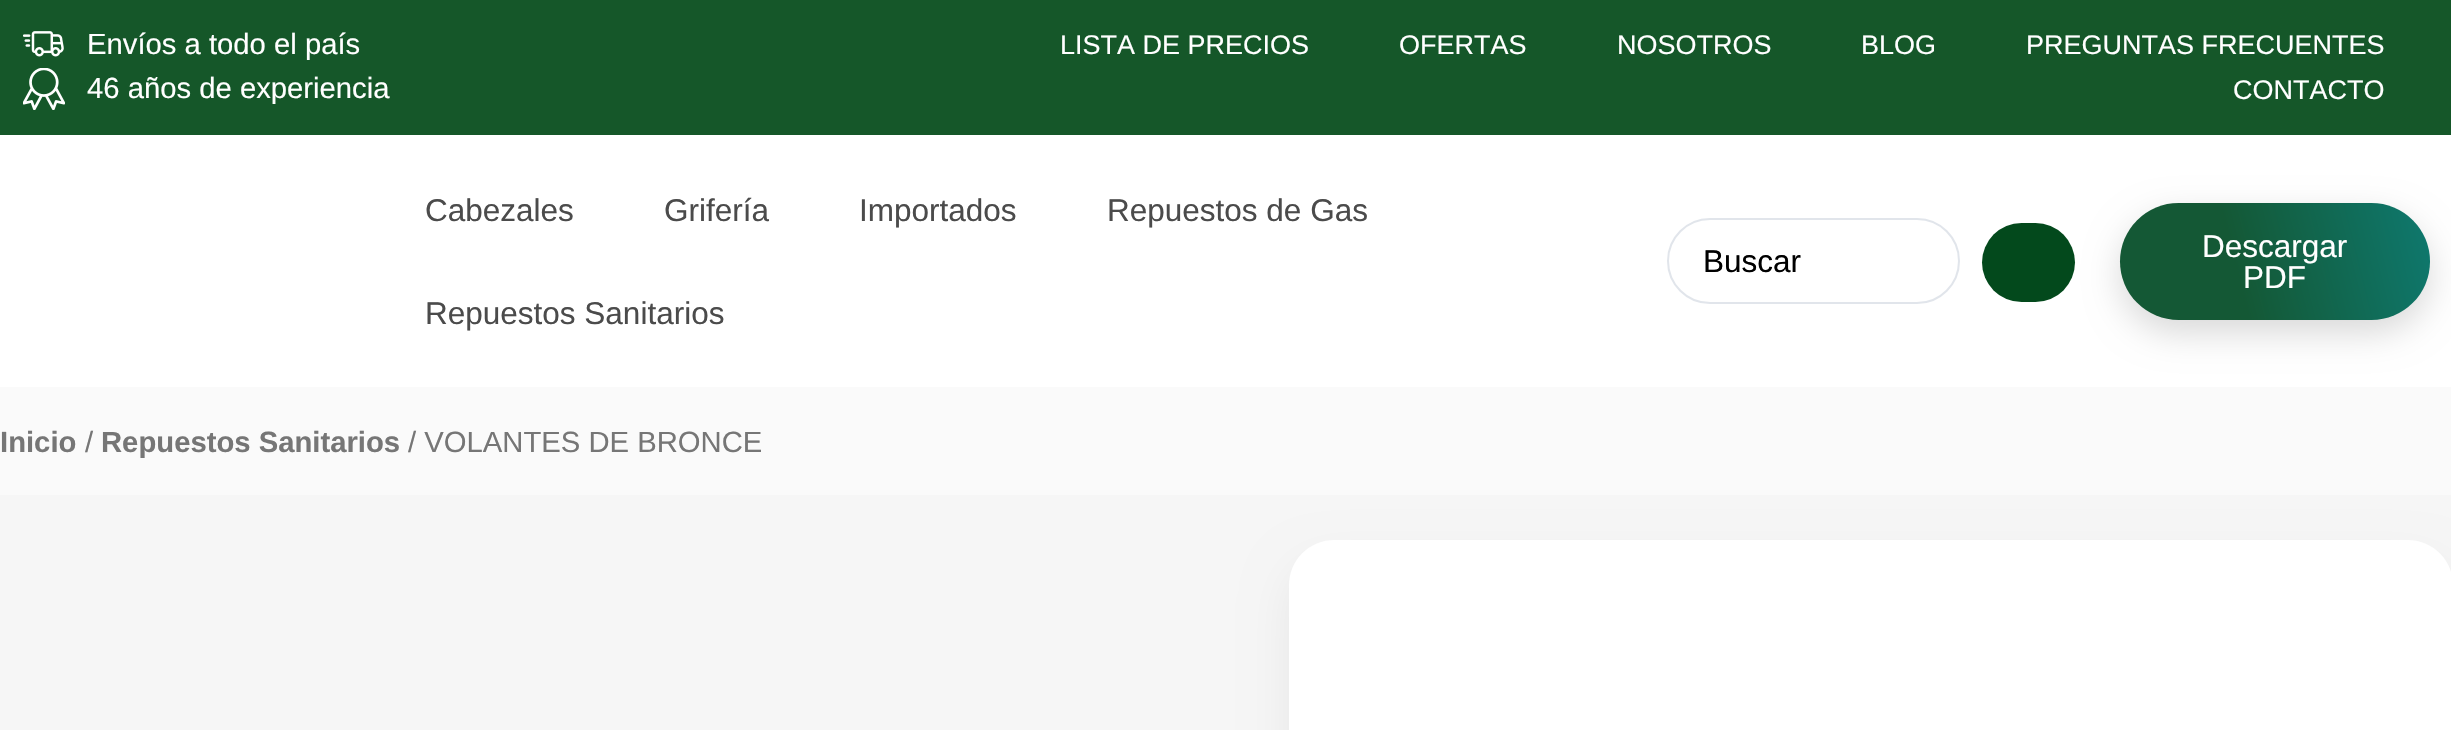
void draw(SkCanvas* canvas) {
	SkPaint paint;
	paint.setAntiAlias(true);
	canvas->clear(0xffffffff);
	paint.setColor(0xff155729);
	canvas->drawRect(SkRect::MakeXYWH(0, 0, 2451, 135), paint);
	canvas->drawImageRect(SkImages::DeferredFromEncodedData(SkData::MakeFromFileName("img1.png")), SkRect::MakeXYWH(23, 31, 41, 26), SkSamplingOptions());
	SkFont f1(fontMgr->matchFamilyStyle("Liberation Sans", SkFontStyle::Normal()), 29.25);
	f1.setSubpixel(true);
	paint.setColor(0xffffffff);
	canvas->drawString("Envíos a todo el país", 87, 54, f1, paint);
	canvas->drawImageRect(SkImages::DeferredFromEncodedData(SkData::MakeFromFileName("img2.png")), SkRect::MakeXYWH(23, 68, 42, 42), SkSamplingOptions());
	canvas->drawString("46 años de experiencia", 87, 98, f1, paint);
	SkFont f2(fontMgr->matchFamilyStyle("Liberation Sans", SkFontStyle::Normal()), 27);
	f2.setSubpixel(true);
	canvas->drawString("LISTA DE PRECIOS", 1060, 54, f2, paint);
	canvas->drawString("OFERTAS", 1399, 54, f2, paint);
	canvas->drawString("NOSOTROS", 1617, 54, f2, paint);
	canvas->drawString("BLOG", 1861, 54, f2, paint);
	canvas->drawString("PREGUNTAS FRECUENTES", 2026, 54, f2, paint);
	canvas->drawString("CONTACTO", 2233, 99, f2, paint);
	SkFont f3(fontMgr->matchFamilyStyle("Liberation Sans", SkFontStyle::Normal()), 31.5);
	f3.setSubpixel(true);
	paint.setColor(0xff4b4b4b);
	canvas->drawString("Cabezales", 425, 221, f3, paint);
	canvas->drawString("Grifería", 664, 221, f3, paint);
	canvas->drawString("Importados", 859, 221, f3, paint);
	canvas->drawString("Repuestos de Gas", 1107, 221, f3, paint);
	canvas->drawString("Repuestos Sanitarios", 425, 324, f3, paint);
	paint.setStroke(true);
	paint.setStrokeWidth(2);
	paint.setColor(0xffe1e5eb);
	canvas->drawRoundRect(SkRect::MakeXYWH(1668, 219, 291, 84), 42, 42, paint);
	paint.setStroke(false);
	paint.setColor(0xff000000);
	canvas->drawString("Buscar", 1703, 272, f3, paint);
	paint.setColor(0xff03491c);
	canvas->drawRoundRect(SkRect::MakeXYWH(1982, 223, 93, 79), 39.5, 39.5, paint);
	paint.setColor(0x26000000);
	paint.setMaskFilter(SkMaskFilter::MakeBlur(kNormal_SkBlurStyle, 17));
	canvas->drawRoundRect(SkRect::MakeXYWH(2120, 216, 310, 117), 58.5, 58.5, paint);
	paint.setMaskFilter(nullptr);
	{
		const SkColor colors[] = {0xff145835, 0xff0e796f};
		const float stops[] = {0.38, 1};
		const SkPoint ends[] = {{2115, 301}, {2435, 221}};
		paint.setShader(SkGradientShader::MakeLinear(ends, colors, stops, 2, SkTileMode::kClamp));
		paint.setAlpha(255);
	}
	canvas->drawRoundRect(SkRect::MakeXYWH(2120, 203, 310, 117), 58.5, 58.5, paint);
	paint.setShader(nullptr);
	paint.setColor(0xffffffff);
	canvas->drawString("Descargar", 2202, 257, f3, paint);
	canvas->drawString("PDF", 2243, 288, f3, paint);
	paint.setColor(0xfffafafa);
	canvas->drawRect(SkRect::MakeXYWH(0, 387, 2451, 108), paint);
	SkFont f4(fontMgr->matchFamilyStyle("Liberation Sans", SkFontStyle::Bold()), 29.25);
	f4.setSubpixel(true);
	paint.setColor(0xff767676);
	canvas->drawString("Inicio", 0, 452, f4, paint);
	canvas->drawString("/", 85, 452, f1, paint);
	canvas->drawString("Repuestos Sanitarios", 101, 452, f4, paint);
	canvas->drawString("/ VOLANTES DE BRONCE", 408, 452, f1, paint);
	paint.setColor(0xfff6f6f6);
	canvas->drawRect(SkRect::MakeXYWH(0, 495, 2451, 235), paint);
	paint.setColor(0x0f000000);
	paint.setMaskFilter(SkMaskFilter::MakeBlur(kNormal_SkBlurStyle, 22.5));
	canvas->drawRoundRect(SkRect::MakeXYWH(1289, 563, 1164, 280), 45, 45, paint);
	paint.setMaskFilter(nullptr);
	paint.setColor(0xffffffff);
	canvas->drawRoundRect(SkRect::MakeXYWH(1289, 540, 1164, 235), 45, 45, paint);
}
